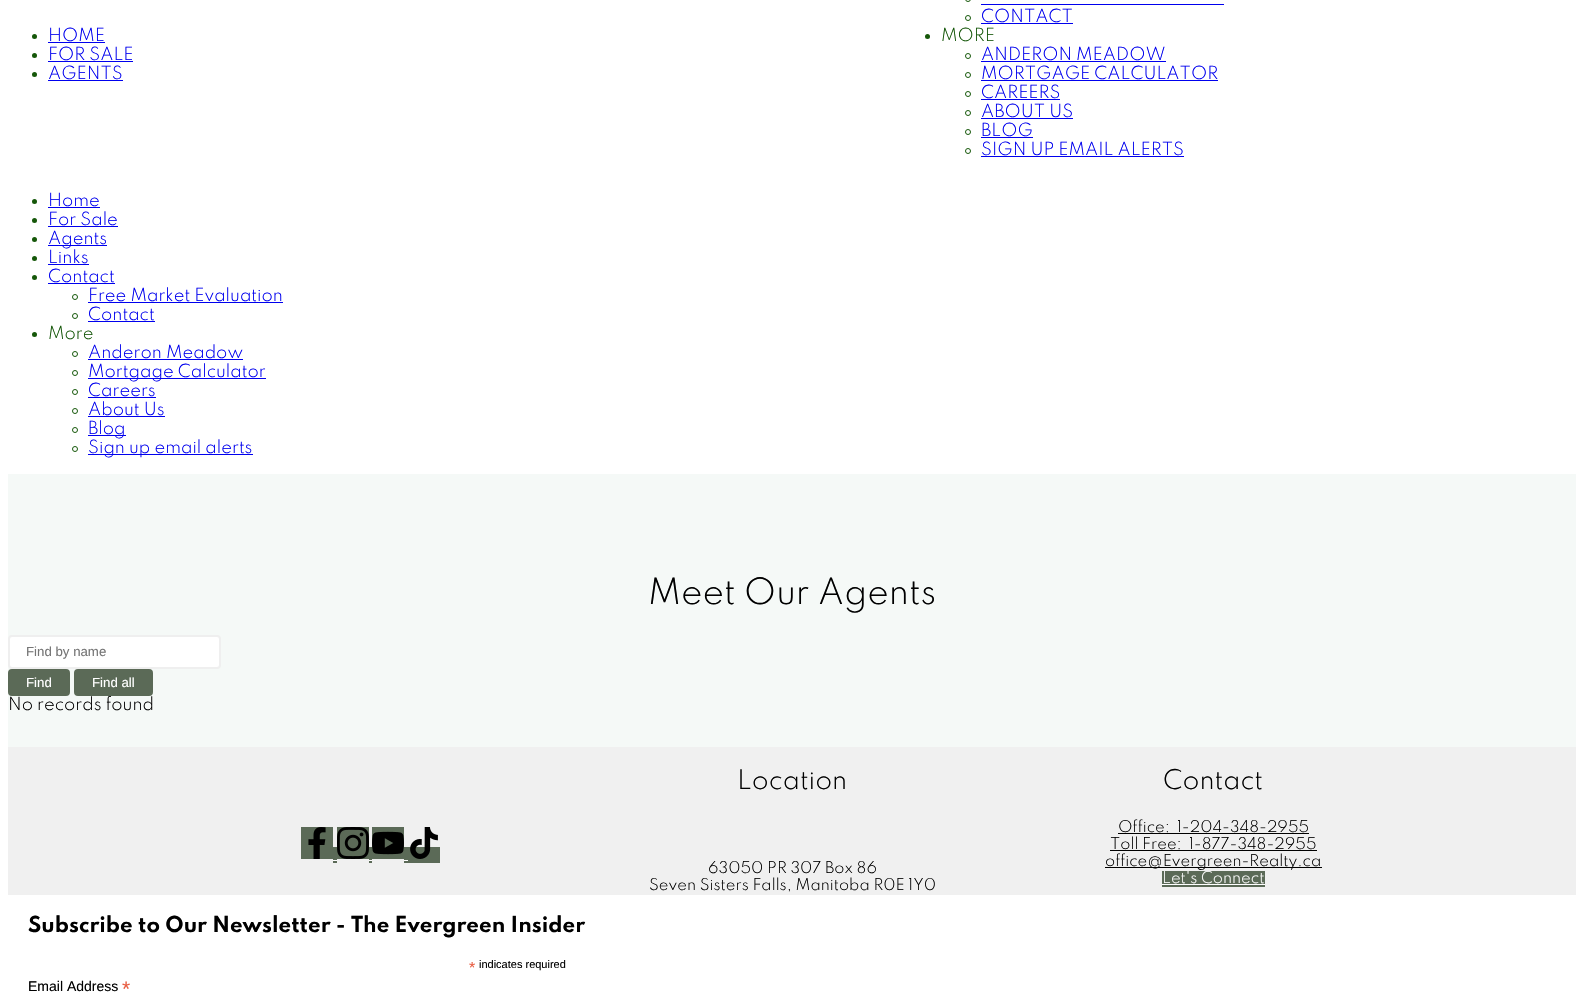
void draw(SkCanvas* canvas) {
	SkPaint paint;
	paint.setAntiAlias(true);
	canvas->clear(0xffffffff);
	paint.setColor(0xff155709);
	canvas->drawCircle(34.5, 36.5, 2.5, paint);
	SkFont f1(fontMgr->matchFamilyStyle("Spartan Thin", SkFontStyle(300, SkFontStyle::kNormal_Width, SkFontStyle::kUpright_Slant)), 16);
	f1.setSubpixel(true);
	paint.setColor(0xff0000ee);
	canvas->drawString("HOME", 48, 41, f1, paint);
	canvas->drawRect(SkRect::MakeXYWH(48, 42, 57, 1), paint);
	paint.setColor(0xff155709);
	canvas->drawCircle(34.5, 55.5, 2.5, paint);
	paint.setColor(0xff0000ee);
	canvas->drawString("FOR SALE", 48, 60, f1, paint);
	canvas->drawRect(SkRect::MakeXYWH(48, 61, 85, 1), paint);
	paint.setColor(0xff155709);
	canvas->drawCircle(34.5, 74.5, 2.5, paint);
	paint.setColor(0xff0000ee);
	canvas->drawString("AGENTS", 48, 79, f1, paint);
	canvas->drawRect(SkRect::MakeXYWH(48, 80, 75, 1), paint);
	paint.setStroke(true);
	paint.setStrokeWidth(1);
	paint.setColor(0xff155709);
	canvas->drawCircle(968, -1, 2.5, paint);
	paint.setStroke(false);
	paint.setColor(0xff0000ee);
	canvas->drawRect(SkRect::MakeXYWH(981, 4, 243, 1), paint);
	paint.setStroke(true);
	paint.setColor(0xff155709);
	canvas->drawCircle(968, 18, 2.5, paint);
	paint.setStroke(false);
	paint.setColor(0xff0000ee);
	canvas->drawString("CONTACT", 981, 22, f1, paint);
	canvas->drawRect(SkRect::MakeXYWH(981, 23, 92, 1), paint);
	paint.setColor(0xff155709);
	canvas->drawCircle(927.5, 36.5, 2.5, paint);
	canvas->drawString("MORE", 941, 41, f1, paint);
	paint.setStroke(true);
	canvas->drawCircle(968, 56, 2.5, paint);
	paint.setStroke(false);
	paint.setColor(0xff0000ee);
	canvas->drawString("ANDERON MEADOW", 981, 60, f1, paint);
	canvas->drawRect(SkRect::MakeXYWH(981, 61, 185, 1), paint);
	paint.setStroke(true);
	paint.setColor(0xff155709);
	canvas->drawCircle(968, 75, 2.5, paint);
	paint.setStroke(false);
	paint.setColor(0xff0000ee);
	canvas->drawString("MORTGAGE CALCULATOR", 981, 79, f1, paint);
	canvas->drawRect(SkRect::MakeXYWH(981, 80, 237, 1), paint);
	paint.setStroke(true);
	paint.setColor(0xff155709);
	canvas->drawCircle(968, 94, 2.5, paint);
	paint.setStroke(false);
	paint.setColor(0xff0000ee);
	canvas->drawString("CAREERS", 981, 98, f1, paint);
	canvas->drawRect(SkRect::MakeXYWH(981, 99, 79, 1), paint);
	paint.setStroke(true);
	paint.setColor(0xff155709);
	canvas->drawCircle(968, 113, 2.5, paint);
	paint.setStroke(false);
	paint.setColor(0xff0000ee);
	canvas->drawString("ABOUT US", 981, 117, f1, paint);
	canvas->drawRect(SkRect::MakeXYWH(981, 118, 92, 1), paint);
	paint.setStroke(true);
	paint.setColor(0xff155709);
	canvas->drawCircle(968, 132, 2.5, paint);
	paint.setStroke(false);
	paint.setColor(0xff0000ee);
	canvas->drawString("BLOG", 981, 136, f1, paint);
	canvas->drawRect(SkRect::MakeXYWH(981, 137, 52, 1), paint);
	paint.setStroke(true);
	paint.setColor(0xff155709);
	canvas->drawCircle(968, 151, 2.5, paint);
	paint.setStroke(false);
	paint.setColor(0xff0000ee);
	canvas->drawString("SIGN UP EMAIL ALERTS", 981, 155, f1, paint);
	canvas->drawRect(SkRect::MakeXYWH(981, 156, 203, 1), paint);
	paint.setColor(0xff155709);
	canvas->drawCircle(34.5, 201.5, 2.5, paint);
	paint.setColor(0xff0000ee);
	canvas->drawString("Home", 48, 206, f1, paint);
	canvas->drawRect(SkRect::MakeXYWH(48, 207, 52, 1), paint);
	paint.setColor(0xff155709);
	canvas->drawCircle(34.5, 220.5, 2.5, paint);
	paint.setColor(0xff0000ee);
	canvas->drawString("For Sale", 48, 225, f1, paint);
	canvas->drawRect(SkRect::MakeXYWH(48, 226, 70, 1), paint);
	paint.setColor(0xff155709);
	canvas->drawCircle(34.5, 239.5, 2.5, paint);
	paint.setColor(0xff0000ee);
	canvas->drawRect(SkRect::MakeXYWH(48, 245, 59, 1), paint);
	canvas->drawString("Agents", 48, 244, f1, paint);
	paint.setColor(0xff155709);
	canvas->drawCircle(34.5, 258.5, 2.5, paint);
	paint.setColor(0xff0000ee);
	canvas->drawString("Links", 48, 263, f1, paint);
	canvas->drawRect(SkRect::MakeXYWH(48, 264, 41, 1), paint);
	paint.setColor(0xff155709);
	canvas->drawCircle(34.5, 277.5, 2.5, paint);
	paint.setColor(0xff0000ee);
	canvas->drawString("Contact", 48, 282, f1, paint);
	canvas->drawRect(SkRect::MakeXYWH(48, 283, 67, 1), paint);
	paint.setStroke(true);
	paint.setColor(0xff155709);
	canvas->drawCircle(75, 297, 2.5, paint);
	paint.setStroke(false);
	paint.setColor(0xff0000ee);
	canvas->drawString("Free Market Evaluation", 88, 301, f1, paint);
	canvas->drawRect(SkRect::MakeXYWH(88, 302, 195, 1), paint);
	paint.setStroke(true);
	paint.setColor(0xff155709);
	canvas->drawCircle(75, 316, 2.5, paint);
	paint.setStroke(false);
	paint.setColor(0xff0000ee);
	canvas->drawString("Contact", 88, 320, f1, paint);
	canvas->drawRect(SkRect::MakeXYWH(88, 321, 67, 1), paint);
	paint.setColor(0xff155709);
	canvas->drawCircle(34.5, 334.5, 2.5, paint);
	canvas->drawString("More", 48, 339, f1, paint);
	paint.setStroke(true);
	canvas->drawCircle(75, 354, 2.5, paint);
	paint.setStroke(false);
	paint.setColor(0xff0000ee);
	canvas->drawString("Anderon Meadow", 88, 358, f1, paint);
	canvas->drawRect(SkRect::MakeXYWH(88, 359, 155, 1), paint);
	paint.setStroke(true);
	paint.setColor(0xff155709);
	canvas->drawCircle(75, 373, 2.5, paint);
	paint.setStroke(false);
	paint.setColor(0xff0000ee);
	canvas->drawRect(SkRect::MakeXYWH(88, 378, 178, 1), paint);
	canvas->drawString("Mortgage Calculator", 88, 377, f1, paint);
	paint.setStroke(true);
	paint.setColor(0xff155709);
	canvas->drawCircle(75, 392, 2.5, paint);
	paint.setStroke(false);
	paint.setColor(0xff0000ee);
	canvas->drawString("Careers", 88, 396, f1, paint);
	canvas->drawRect(SkRect::MakeXYWH(88, 397, 68, 1), paint);
	paint.setStroke(true);
	paint.setColor(0xff155709);
	canvas->drawCircle(75, 411, 2.5, paint);
	paint.setStroke(false);
	paint.setColor(0xff0000ee);
	canvas->drawString("About Us", 88, 415, f1, paint);
	canvas->drawRect(SkRect::MakeXYWH(88, 416, 77, 1), paint);
	paint.setStroke(true);
	paint.setColor(0xff155709);
	canvas->drawCircle(75, 430, 2.5, paint);
	paint.setStroke(false);
	paint.setColor(0xff0000ee);
	canvas->drawRect(SkRect::MakeXYWH(88, 435, 38, 1), paint);
	canvas->drawString("Blog", 88, 434, f1, paint);
	paint.setStroke(true);
	paint.setColor(0xff155709);
	canvas->drawCircle(75, 449, 2.5, paint);
	paint.setStroke(false);
	paint.setColor(0xff0000ee);
	canvas->drawRect(SkRect::MakeXYWH(88, 454, 165, 1), paint);
	canvas->drawString("Sign up email alerts", 88, 453, f1, paint);
	paint.setColor(0xfff5f9f7);
	canvas->drawRect(SkRect::MakeXYWH(8, 474, 1568, 273), paint);
	SkFont f2(fontMgr->matchFamilyStyle("Spartan Thin", SkFontStyle(300, SkFontStyle::kNormal_Width, SkFontStyle::kUpright_Slant)), 32);
	f2.setSubpixel(true);
	paint.setColor(0xff000000);
	canvas->drawString("Meet Our Agents", 648, 604, f2, paint);
	paint.setColor(0xffffffff);
	canvas->drawRoundRect(SkRect::MakeXYWH(9, 636, 211, 32), 3, 3, paint);
	paint.setStroke(true);
	paint.setStrokeWidth(2);
	paint.setColor(0xffefefef);
	canvas->drawRoundRect(SkRect::MakeXYWH(9, 636, 211, 32), 3, 3, paint);
	SkFont f3(fontMgr->matchFamilyStyle("Liberation Sans", SkFontStyle::Normal()), 13.25);
	f3.setSubpixel(true);
	paint.setStroke(false);
	paint.setColor(0xff757575);
	canvas->drawString("Find by name", 26, 656, f3, paint);
	paint.setColor(0xff5b6a57);
	canvas->drawRoundRect(SkRect::MakeXYWH(9, 670, 60, 25), 3, 3, paint);
	paint.setStroke(true);
	canvas->drawRoundRect(SkRect::MakeXYWH(9, 670, 60, 25), 3, 3, paint);
	paint.setStroke(false);
	paint.setColor(0xffffffff);
	canvas->drawString("Find", 26, 687, f3, paint);
	paint.setColor(0xff5b6a57);
	canvas->drawRoundRect(SkRect::MakeXYWH(75, 670, 77, 25), 3, 3, paint);
	paint.setStroke(true);
	canvas->drawRoundRect(SkRect::MakeXYWH(75, 670, 77, 25), 3, 3, paint);
	paint.setStroke(false);
	paint.setColor(0xffffffff);
	canvas->drawString("Find all", 92, 687, f3, paint);
	paint.setColor(0xff000000);
	canvas->drawString("No records found", 8, 710, f1, paint);
	paint.setColor(0xfff0f0f0);
	canvas->drawRect(SkRect::MakeXYWH(8, 747, 1568, 148), paint);
	paint.setColor(0xff5b6a57);
	canvas->drawRect(SkRect::MakeXYWH(301, 827, 32, 32), paint);
	canvas->drawImageRect(SkImages::DeferredFromEncodedData(SkData::MakeFromFileName("img1.png")), SkRect::MakeXYWH(308, 827, 18, 32), SkSamplingOptions());
	canvas->drawRect(SkRect::MakeXYWH(337, 827, 32, 32), paint);
	canvas->drawImageRect(SkImages::DeferredFromEncodedData(SkData::MakeFromFileName("img2.png")), SkRect::MakeXYWH(337, 827, 32, 32), SkSamplingOptions());
	canvas->drawRect(SkRect::MakeXYWH(372, 827, 32, 32), paint);
	canvas->drawRect(SkRect::MakeXYWH(404, 847, 36, 16), paint);
	canvas->drawImageRect(SkImages::DeferredFromEncodedData(SkData::MakeFromFileName("img3.png")), SkRect::MakeXYWH(410, 827, 28, 32), SkSamplingOptions());
	canvas->drawRect(SkRect::MakeXYWH(333, 847, 4, 16), paint);
	canvas->drawRect(SkRect::MakeXYWH(369, 847, 3, 16), paint);
	canvas->drawImageRect(SkImages::DeferredFromEncodedData(SkData::MakeFromFileName("img4.png")), SkRect::MakeXYWH(372, 831, 32, 24), SkSamplingOptions());
	paint.setColor(0xffffffff);
	canvas->drawRect(SkRect::MakeXYWH(333, 860, 4, 1), paint);
	canvas->drawRect(SkRect::MakeXYWH(369, 860, 3, 1), paint);
	canvas->drawRect(SkRect::MakeXYWH(404, 860, 4, 1), paint);
	SkFont f4(fontMgr->matchFamilyStyle("Spartan Thin", SkFontStyle(300, SkFontStyle::kNormal_Width, SkFontStyle::kUpright_Slant)), 24);
	f4.setSubpixel(true);
	paint.setColor(0xff000000);
	canvas->drawString("Location", 737, 789, f4, paint);
	SkFont f5(fontMgr->matchFamilyStyle("Spartan Thin", SkFontStyle(300, SkFontStyle::kNormal_Width, SkFontStyle::kUpright_Slant)), 14.4);
	f5.setSubpixel(true);
	canvas->drawString("63050 PR 307 Box 86", 708, 873, f5, paint);
	canvas->drawString("Seven Sisters Falls, Manitoba R0E 1Y0", 649, 890, f5, paint);
	canvas->drawString("Contact", 1163, 789, f4, paint);
	canvas->drawString("Office:", 1118, 832, f5, paint);
	canvas->drawRect(SkRect::MakeXYWH(1118, 833, 191, 1), paint);
	canvas->drawString("1-204-348-2955", 1177, 832, f5, paint);
	canvas->drawString("Toll Free:", 1110, 849, f5, paint);
	canvas->drawRect(SkRect::MakeXYWH(1110, 850, 207, 1), paint);
	canvas->drawString("1-877-348-2955", 1189, 849, f5, paint);
	canvas->drawRect(SkRect::MakeXYWH(1105, 867, 217, 1), paint);
	canvas->drawString("office@Evergreen-Realty.ca", 1105, 866, f5, paint);
	paint.setColor(0xff5b6a57);
	canvas->drawRect(SkRect::MakeXYWH(1162, 871, 103, 16), paint);
	paint.setColor(0xffffffff);
	canvas->drawString("Let's Connect", 1162, 883, f5, paint);
	canvas->drawRect(SkRect::MakeXYWH(1162, 884, 103, 1), paint);
	SkFont f6(fontMgr->matchFamilyStyle("Spartan Thin", SkFontStyle::Bold()), 19.6);
	f6.setSubpixel(true);
	paint.setColor(0xff000000);
	canvas->drawString("Subscribe to Our Newsletter - The Evergreen Insider", 28, 932, f6, paint);
	SkFont f7(fontMgr->matchFamilyStyle("Liberation Sans", SkFontStyle::Normal()), 16);
	f7.setSubpixel(true);
	paint.setColor(0xffe85c41);
	canvas->drawString("*", 469, 973, f7, paint);
	SkFont f8(fontMgr->matchFamilyStyle("Liberation Sans", SkFontStyle::Normal()), 11);
	f8.setSubpixel(true);
	paint.setColor(0xff000000);
	canvas->drawString("indicates required", 479, 968, f8, paint);
	SkFont f9(fontMgr->matchFamilyStyle("Liberation Sans", SkFontStyle::Normal()), 14);
	f9.setSubpixel(true);
	canvas->drawString("Email Address", 28, 991, f9, paint);
	SkFont f10(fontMgr->matchFamilyStyle("Liberation Sans", SkFontStyle::Normal()), 21);
	f10.setSubpixel(true);
	paint.setColor(0xffe85c41);
	canvas->drawString("*", 122, 996, f10, paint);
}
